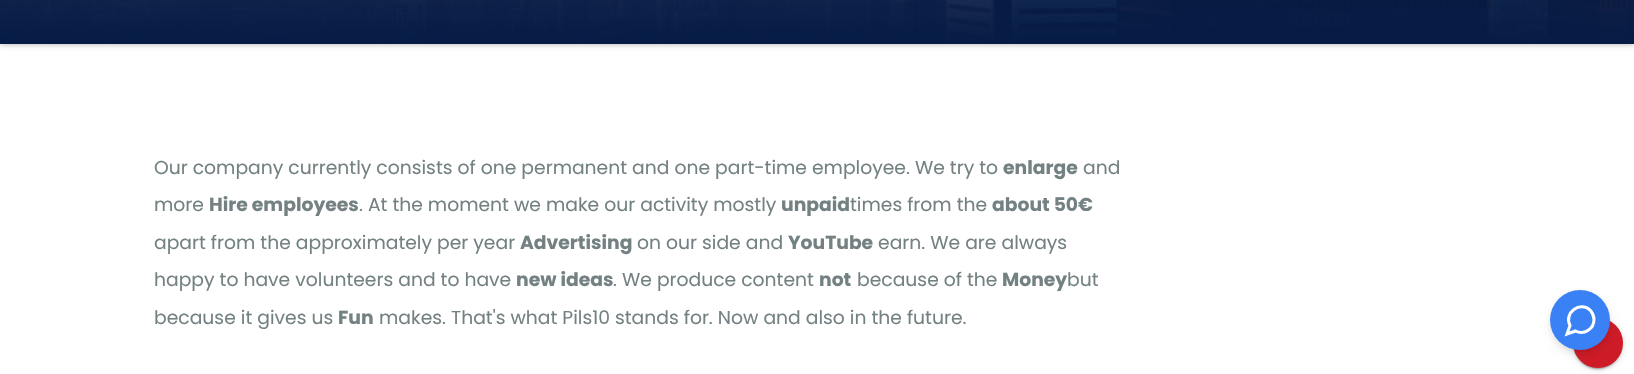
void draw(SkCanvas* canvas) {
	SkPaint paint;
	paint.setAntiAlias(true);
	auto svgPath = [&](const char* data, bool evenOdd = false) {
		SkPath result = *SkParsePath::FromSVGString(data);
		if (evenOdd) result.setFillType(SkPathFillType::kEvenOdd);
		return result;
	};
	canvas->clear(0xffffffff);
	paint.setColor(0xffaaaaaa);
	paint.setMaskFilter(SkMaskFilter::MakeBlur(kNormal_SkBlurStyle, 3));
	canvas->drawRect(SkRect::MakeXYWH(0, -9, 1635, 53), paint);
	paint.setMaskFilter(nullptr);
	canvas->drawImageRect(SkImages::DeferredFromEncodedData(SkData::MakeFromFileName("img1.png")), SkRect::MakeXYWH(0, 0, 1634, 41), SkSamplingOptions());
	{
		const SkColor colors[] = {0xff051b44, 0x80051b44, 0xff051b44};
		const float stops[] = {0, 0.5, 1};
		const SkPoint ends[] = {{818, -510}, {818, 44}};
		paint.setShader(SkGradientShader::MakeLinear(ends, colors, stops, 3, SkTileMode::kClamp));
		paint.setAlpha(255);
	}
	canvas->drawRect(SkRect::MakeXYWH(0, 0, 1634, 44), paint);
	SkFont f1(fontMgr->matchFamilyStyle("Poppins", SkFontStyle::Normal()), 18.75);
	f1.setSubpixel(true);
	paint.setShader(nullptr);
	paint.setColor(0xff748182);
	canvas->drawString("Our company currently consists of one permanent and one part-time employee. We try to", 154, 174, f1, paint);
	SkFont f2(fontMgr->matchFamilyStyle("Poppins", SkFontStyle::Bold()), 18.75);
	f2.setSubpixel(true);
	canvas->drawString("enlarge", 1003, 174, f2, paint);
	canvas->drawString("and", 1083, 174, f1, paint);
	canvas->drawString("more", 154, 211, f1, paint);
	canvas->drawString("Hire employees", 209, 211, f2, paint);
	canvas->drawString(". At the moment we make our activity mostly", 359, 211, f1, paint);
	canvas->drawString("unpaid", 781, 211, f2, paint);
	canvas->drawString("times from the", 850, 211, f1, paint);
	canvas->drawString("about 50€", 992, 211, f2, paint);
	canvas->drawString("apart from the approximately per year", 154, 249, f1, paint);
	canvas->drawString("Advertising", 520, 249, f2, paint);
	canvas->drawString("on our side and", 637, 249, f1, paint);
	canvas->drawString("YouTube", 788, 249, f2, paint);
	canvas->drawString("earn. We are always", 878, 249, f1, paint);
	canvas->drawString("happy to have volunteers and to have", 154, 286, f1, paint);
	canvas->drawString("new ideas", 516, 286, f2, paint);
	canvas->drawString(". We produce content", 613, 286, f1, paint);
	canvas->drawString("not", 819, 286, f2, paint);
	canvas->drawString("because of the", 857, 286, f1, paint);
	canvas->drawString("Money", 1002, 286, f2, paint);
	canvas->drawString("but", 1067, 286, f1, paint);
	canvas->drawString("because it gives us", 154, 324, f1, paint);
	canvas->drawString("Fun", 338, 324, f2, paint);
	canvas->drawString("makes. That's what Pils10 stands for. Now and also in the future.", 379, 324, f1, paint);
	paint.setColor(0x1f000000);
	paint.setMaskFilter(SkMaskFilter::MakeBlur(kNormal_SkBlurStyle, 3));
	canvas->drawRoundRect(SkRect::MakeXYWH(1573, 319, 50, 50), 25, 25, paint);
	paint.setMaskFilter(nullptr);
	paint.setColor(0x33000000);
	paint.setMaskFilter(SkMaskFilter::MakeBlur(kNormal_SkBlurStyle, 0.5));
	canvas->drawRoundRect(SkRect::MakeXYWH(1575, 324, 45, 45), 22.5, 22.5, paint);
	paint.setMaskFilter(nullptr);
	paint.setColor(0x24000000);
	paint.setMaskFilter(SkMaskFilter::MakeBlur(kNormal_SkBlurStyle, 1));
	canvas->drawRoundRect(SkRect::MakeXYWH(1573, 320, 50, 50), 25, 25, paint);
	paint.setMaskFilter(nullptr);
	paint.setColor(0xffce1b28);
	canvas->drawCircle(1598, 343, 23.5, paint);
	paint.setStroke(true);
	paint.setStrokeWidth(3);
	canvas->drawCircle(1598, 343, 23.5, paint);
	paint.setStroke(false);
	paint.setColor(0x1a000000);
	paint.setMaskFilter(SkMaskFilter::MakeBlur(kNormal_SkBlurStyle, 2.5));
	canvas->drawRoundRect(SkRect::MakeXYWH(1553, 295, 55, 55), 27.5, 27.5, paint);
	paint.setMaskFilter(nullptr);
	paint.setMaskFilter(SkMaskFilter::MakeBlur(kNormal_SkBlurStyle, 4));
	canvas->drawRoundRect(SkRect::MakeXYWH(1551, 296, 58, 58), 29, 29, paint);
	paint.setMaskFilter(nullptr);
	paint.setColor(0xff3b81f6);
	canvas->drawCircle(1580, 320, 30, paint);
	paint.setStroke(true);
	paint.setColor(0xffffffff);
	canvas->drawPath(svgPath("M1594 319.5C1594 329 1584 335.5 1575.5 331L1567 334L1570 325.5C1563.5 313 1580 300.5 1590.5 310.5C1592.5 313 1594 316.5 1594 319.5Z"), paint);
}
